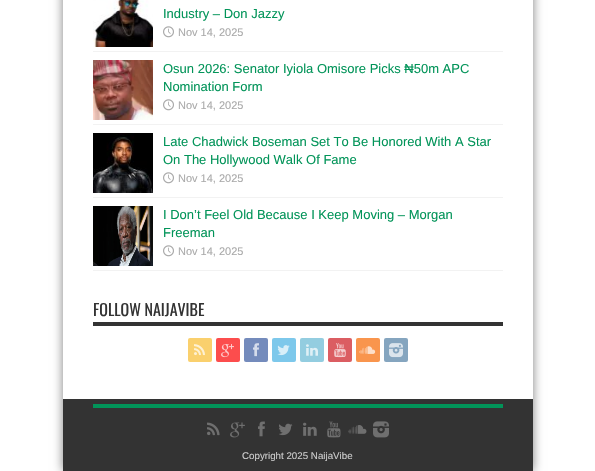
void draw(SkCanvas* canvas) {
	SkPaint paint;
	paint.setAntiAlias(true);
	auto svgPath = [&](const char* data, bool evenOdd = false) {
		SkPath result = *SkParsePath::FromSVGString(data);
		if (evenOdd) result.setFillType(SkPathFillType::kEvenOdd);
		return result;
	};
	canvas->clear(0xffffffff);
	canvas->save();
	canvas->clipPath(svgPath("M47 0H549V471H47ZM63-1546H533V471H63Z", true), true);
	paint.setColor(0x80000000);
	paint.setMaskFilter(SkMaskFilter::MakeBlur(kNormal_SkBlurStyle, 5));
	canvas->drawRect(SkRect::MakeXYWH(63, -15, 470, 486), paint);
	paint.setMaskFilter(nullptr);
	canvas->restore();
	paint.setColor(0xfff2f2f2);
	canvas->drawRect(SkRect::MakeXYWH(93, 51, 410, 1), paint);
	canvas->drawImageRect(SkImages::DeferredFromEncodedData(SkData::MakeFromFileName("img1.png")), SkRect::MakeXYWH(93, 0, 60, 47), SkSamplingOptions());
	SkFont f1(fontMgr->matchFamilyStyle("Liberation Sans", SkFontStyle::Normal()), 13);
	f1.setSubpixel(true);
	paint.setColor(0xff029459);
	canvas->drawString("Industry – Don Jazzy", 163, 18, f1, paint);
	canvas->drawImageRect(SkImages::DeferredFromEncodedData(SkData::MakeFromFileName("img2.png")), SkRect::MakeXYWH(163, 26, 11, 12), SkSamplingOptions());
	SkFont f2(fontMgr->matchFamilyStyle("Liberation Sans", SkFontStyle::Normal()), 11);
	f2.setSubpixel(true);
	paint.setColor(0xffaaaaaa);
	canvas->drawString("Nov 14, 2025", 178, 36, f2, paint);
	paint.setColor(0xfff2f2f2);
	canvas->drawRect(SkRect::MakeXYWH(93, 124, 410, 1), paint);
	canvas->drawImageRect(SkImages::DeferredFromEncodedData(SkData::MakeFromFileName("img3.png")), SkRect::MakeXYWH(93, 60, 60, 60), SkSamplingOptions());
	paint.setColor(0xff029459);
	canvas->drawString("Osun 2026: Senator Iyiola Omisore Picks ₦50m APC", 163, 73, f1, paint);
	canvas->drawString("Nomination Form", 163, 91, f1, paint);
	canvas->drawImageRect(SkImages::DeferredFromEncodedData(SkData::MakeFromFileName("img2.png")), SkRect::MakeXYWH(163, 99, 11, 12), SkSamplingOptions());
	paint.setColor(0xffaaaaaa);
	canvas->drawString("Nov 14, 2025", 178, 109, f2, paint);
	paint.setColor(0xfff2f2f2);
	canvas->drawRect(SkRect::MakeXYWH(93, 197, 410, 1), paint);
	canvas->drawImageRect(SkImages::DeferredFromEncodedData(SkData::MakeFromFileName("img4.png")), SkRect::MakeXYWH(93, 133, 60, 60), SkSamplingOptions());
	paint.setColor(0xff029459);
	canvas->drawString("Late Chadwick Boseman Set To Be Honored With A Star", 163, 146, f1, paint);
	canvas->drawString("On The Hollywood Walk Of Fame", 163, 164, f1, paint);
	canvas->drawImageRect(SkImages::DeferredFromEncodedData(SkData::MakeFromFileName("img2.png")), SkRect::MakeXYWH(163, 172, 11, 12), SkSamplingOptions());
	paint.setColor(0xffaaaaaa);
	canvas->drawString("Nov 14, 2025", 178, 182, f2, paint);
	paint.setColor(0xfff2f2f2);
	canvas->drawRect(SkRect::MakeXYWH(93, 270, 410, 1), paint);
	canvas->drawImageRect(SkImages::DeferredFromEncodedData(SkData::MakeFromFileName("img5.png")), SkRect::MakeXYWH(93, 206, 60, 60), SkSamplingOptions());
	paint.setColor(0xff029459);
	canvas->drawString("I Don’t Feel Old Because I Keep Moving – Morgan", 163, 219, f1, paint);
	canvas->drawString("Freeman", 163, 237, f1, paint);
	canvas->drawImageRect(SkImages::DeferredFromEncodedData(SkData::MakeFromFileName("img2.png")), SkRect::MakeXYWH(163, 245, 11, 12), SkSamplingOptions());
	paint.setColor(0xffaaaaaa);
	canvas->drawString("Nov 14, 2025", 178, 255, f2, paint);
	paint.setColor(0xff333333);
	canvas->drawRect(SkRect::MakeXYWH(93, 322, 410, 4), paint);
	SkFont f3(fontMgr->matchFamilyStyle("Oswald", SkFontStyle::Normal()), 16);
	f3.setSubpixel(true);
	canvas->drawString("FOLLOW NAIJAVIBE", 93, 316, f3, paint);
	paint.setColor(0xfffad06d);
	canvas->drawRoundRect(SkRect::MakeXYWH(188, 338, 24, 24), 2, 2, paint);
	canvas->drawImageRect(SkImages::DeferredFromEncodedData(SkData::MakeFromFileName("img6.png")), SkRect::MakeXYWH(194, 344, 11, 12), SkSamplingOptions());
	paint.setColor(0xfffc4d4d);
	canvas->drawRoundRect(SkRect::MakeXYWH(216, 338, 24, 24), 2, 2, paint);
	canvas->drawImageRect(SkImages::DeferredFromEncodedData(SkData::MakeFromFileName("img7.png")), SkRect::MakeXYWH(221, 344, 13, 14), SkSamplingOptions());
	paint.setColor(0xff748bbc);
	canvas->drawRoundRect(SkRect::MakeXYWH(244, 338, 24, 24), 2, 2, paint);
	canvas->drawImageRect(SkImages::DeferredFromEncodedData(SkData::MakeFromFileName("img8.png")), SkRect::MakeXYWH(253, 343, 6, 14), SkSamplingOptions());
	paint.setColor(0xff7dc8eb);
	canvas->drawRoundRect(SkRect::MakeXYWH(272, 338, 24, 24), 2, 2, paint);
	canvas->drawImageRect(SkImages::DeferredFromEncodedData(SkData::MakeFromFileName("img9.png")), SkRect::MakeXYWH(277, 345, 13, 11), SkSamplingOptions());
	paint.setColor(0xff93cde0);
	canvas->drawRoundRect(SkRect::MakeXYWH(300, 338, 24, 24), 2, 2, paint);
	canvas->drawImageRect(SkImages::DeferredFromEncodedData(SkData::MakeFromFileName("img10.png")), SkRect::MakeXYWH(306, 344, 12, 12), SkSamplingOptions());
	paint.setColor(0xffdb5d62);
	canvas->drawRoundRect(SkRect::MakeXYWH(328, 338, 24, 24), 2, 2, paint);
	canvas->drawImageRect(SkImages::DeferredFromEncodedData(SkData::MakeFromFileName("img11.png")), SkRect::MakeXYWH(334, 343, 12, 15), SkSamplingOptions());
	paint.setColor(0xfff9954d);
	canvas->drawRoundRect(SkRect::MakeXYWH(356, 338, 24, 24), 2, 2, paint);
	canvas->drawImageRect(SkImages::DeferredFromEncodedData(SkData::MakeFromFileName("img12.png")), SkRect::MakeXYWH(359, 346, 17, 8), SkSamplingOptions());
	paint.setColor(0xff85a5bf);
	canvas->drawRoundRect(SkRect::MakeXYWH(384, 338, 24, 24), 2, 2, paint);
	canvas->drawImageRect(SkImages::DeferredFromEncodedData(SkData::MakeFromFileName("img13.png")), SkRect::MakeXYWH(389, 343, 14, 15), SkSamplingOptions());
	paint.setColor(0xff333333);
	canvas->drawRect(SkRect::MakeXYWH(63, 399, 470, 72), paint);
	paint.setColor(0xff029459);
	canvas->drawRect(SkRect::MakeXYWH(93, 404, 410, 4), paint);
	canvas->drawImageRect(SkImages::DeferredFromEncodedData(SkData::MakeFromFileName("img14.png")), SkRect::MakeXYWH(207, 422, 13, 14), SkSamplingOptions());
	canvas->drawImageRect(SkImages::DeferredFromEncodedData(SkData::MakeFromFileName("img15.png")), SkRect::MakeXYWH(230, 422, 15, 16), SkSamplingOptions());
	canvas->drawImageRect(SkImages::DeferredFromEncodedData(SkData::MakeFromFileName("img16.png")), SkRect::MakeXYWH(258, 421, 7, 16), SkSamplingOptions());
	canvas->drawImageRect(SkImages::DeferredFromEncodedData(SkData::MakeFromFileName("img17.png")), SkRect::MakeXYWH(279, 423, 14, 13), SkSamplingOptions());
	canvas->drawImageRect(SkImages::DeferredFromEncodedData(SkData::MakeFromFileName("img18.png")), SkRect::MakeXYWH(303, 422, 14, 14), SkSamplingOptions());
	canvas->drawImageRect(SkImages::DeferredFromEncodedData(SkData::MakeFromFileName("img19.png")), SkRect::MakeXYWH(327, 421, 14, 17), SkSamplingOptions());
	canvas->drawImageRect(SkImages::DeferredFromEncodedData(SkData::MakeFromFileName("img20.png")), SkRect::MakeXYWH(348, 425, 19, 9), SkSamplingOptions());
	canvas->drawImageRect(SkImages::DeferredFromEncodedData(SkData::MakeFromFileName("img21.png")), SkRect::MakeXYWH(373, 421, 16, 17), SkSamplingOptions());
	SkFont f4(fontMgr->matchFamilyStyle("Liberation Sans", SkFontStyle::Normal()), 9.75);
	f4.setSubpixel(true);
	paint.setColor(0xffcccccc);
	canvas->drawString("Copyright 2025 NaijaVibe", 242, 459, f4, paint);
}
